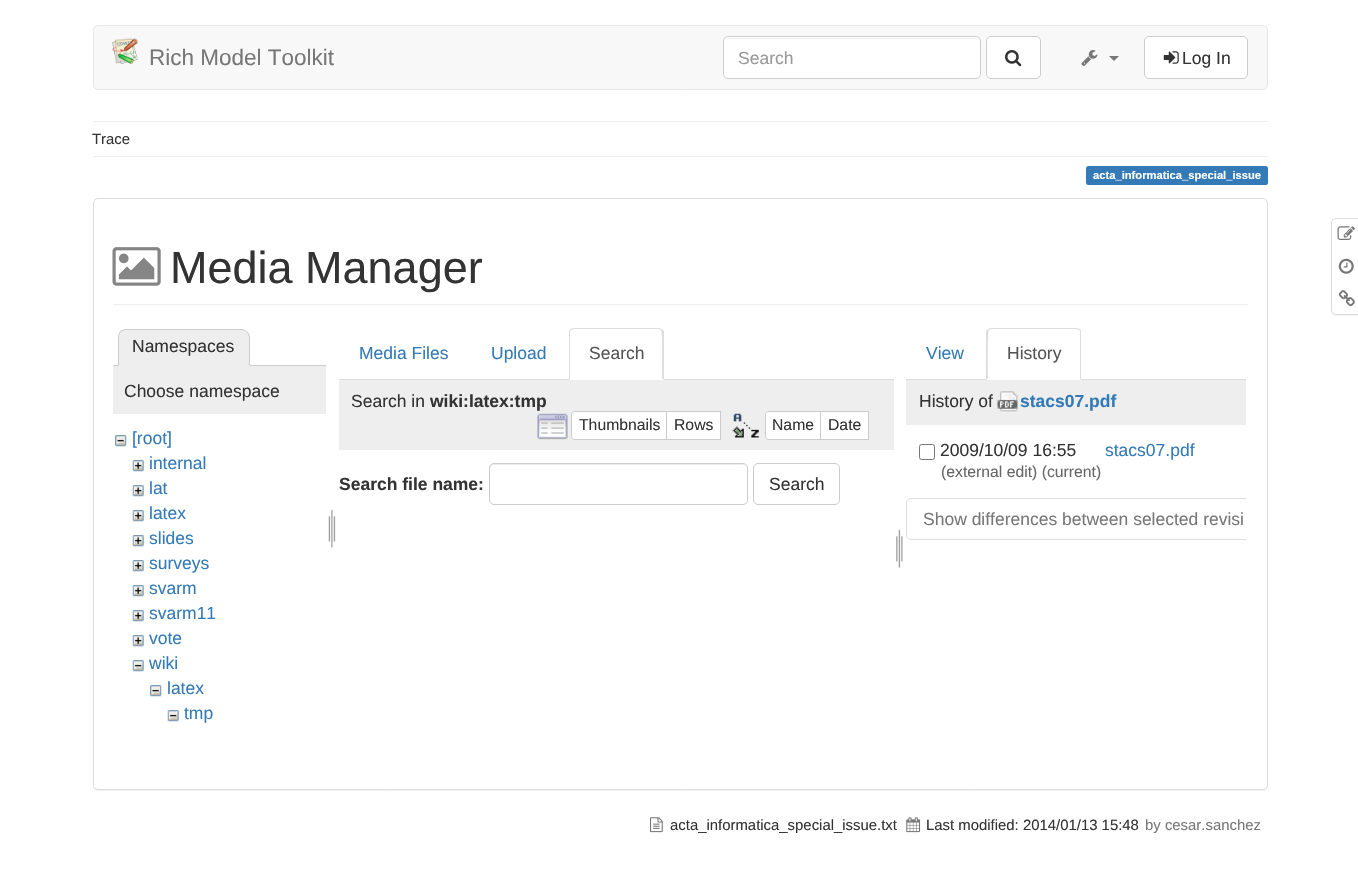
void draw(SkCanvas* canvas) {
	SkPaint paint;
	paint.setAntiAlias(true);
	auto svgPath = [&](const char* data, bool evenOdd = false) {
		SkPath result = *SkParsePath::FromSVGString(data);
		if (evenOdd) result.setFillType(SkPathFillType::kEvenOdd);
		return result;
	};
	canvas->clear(0xffffffff);
	paint.setColor(0xfff8f8f8);
	canvas->drawRoundRect(SkRect::MakeXYWH(93.5, 25.5, 1174, 64), 4.5, 4.5, paint);
	paint.setStroke(true);
	paint.setStrokeWidth(1);
	paint.setColor(0xffe7e7e7);
	canvas->drawRoundRect(SkRect::MakeXYWH(93.5, 25.5, 1174, 64), 4.5, 4.5, paint);
	canvas->drawImageRect(SkImages::DeferredFromEncodedData(SkData::MakeFromFileName("img1.png")), SkRect::MakeXYWH(112, 38, 26, 26), SkSamplingOptions());
	SkFont f1(fontMgr->matchFamilyStyle("Liberation Sans", SkFontStyle::Normal()), 22.5);
	f1.setSubpixel(true);
	paint.setStroke(false);
	paint.setColor(0xff777777);
	canvas->drawString("Rich Model Toolkit", 149, 65, f1, paint);
	paint.setColor(0xffffffff);
	canvas->drawRoundRect(SkRect::MakeXYWH(723, 36, 258, 43), 5, 5, paint);
	paint.setColor(0xffececec);
	canvas->drawPath(svgPath("M728 39H976C978 39 980 40 980 42C980 40 978 38 976 38H728C726 38 725 39 724 40C725 39 726 39 728 39Z"), paint);
	paint.setStroke(true);
	paint.setColor(0xffcccccc);
	canvas->drawRoundRect(SkRect::MakeXYWH(723.5, 36.5, 257, 42), 4.5, 4.5, paint);
	SkFont f2(fontMgr->matchFamilyStyle("Liberation Sans", SkFontStyle::Normal()), 17.5);
	f2.setSubpixel(true);
	paint.setStroke(false);
	paint.setColor(0xff999999);
	canvas->drawString("Search", 738, 64, f2, paint);
	paint.setColor(0xffffffff);
	canvas->drawRoundRect(SkRect::MakeXYWH(986.5, 36.5, 54, 42), 4.5, 4.5, paint);
	paint.setStroke(true);
	paint.setColor(0xffcccccc);
	canvas->drawRoundRect(SkRect::MakeXYWH(986.5, 36.5, 54, 42), 4.5, 4.5, paint);
	canvas->drawImageRect(SkImages::DeferredFromEncodedData(SkData::MakeFromFileName("img2.png")), SkRect::MakeXYWH(1005, 50, 17, 17), SkSamplingOptions());
	canvas->drawImageRect(SkImages::DeferredFromEncodedData(SkData::MakeFromFileName("img3.png")), SkRect::MakeXYWH(1081, 50, 17, 16), SkSamplingOptions());
	paint.setStroke(false);
	paint.setColor(0xff777777);
	canvas->drawPath(svgPath("M1109 56H1119L1114 61Z"), paint);
	paint.setColor(0xffffffff);
	canvas->drawRoundRect(SkRect::MakeXYWH(1144.5, 36.5, 103, 42), 4.5, 4.5, paint);
	paint.setStroke(true);
	paint.setColor(0xffcccccc);
	canvas->drawRoundRect(SkRect::MakeXYWH(1144.5, 36.5, 103, 42), 4.5, 4.5, paint);
	canvas->drawImageRect(SkImages::DeferredFromEncodedData(SkData::MakeFromFileName("img4.png")), SkRect::MakeXYWH(1163, 51, 16, 13), SkSamplingOptions());
	paint.setStroke(false);
	paint.setColor(0xff333333);
	canvas->drawString("Log In", 1182, 64, f2, paint);
	paint.setColor(0xffeeeeee);
	canvas->drawRect(SkRect::MakeXYWH(93, 121, 1175, 1), paint);
	SkFont f3(fontMgr->matchFamilyStyle("Liberation Sans", SkFontStyle::Normal()), 14.9);
	f3.setSubpixel(true);
	paint.setColor(0xff333333);
	canvas->drawString("Trace", 92, 144, f3, paint);
	paint.setColor(0xffeeeeee);
	canvas->drawRect(SkRect::MakeXYWH(93, 156, 1175, 1), paint);
	paint.setColor(0xff337ab7);
	canvas->drawRoundRect(SkRect::MakeXYWH(1086, 166, 182, 19), 2.5, 2.5, paint);
	SkFont f4(fontMgr->matchFamilyStyle("Liberation Sans", SkFontStyle::Bold()), 11.2);
	f4.setSubpixel(true);
	paint.setColor(0xffffffff);
	canvas->drawString("acta_informatica_special_issue", 1093, 179, f4, paint);
	paint.setColor(0x0d000000);
	paint.setMaskFilter(SkMaskFilter::MakeBlur(kNormal_SkBlurStyle, 0.5));
	canvas->drawRoundRect(SkRect::MakeXYWH(93, 199, 1175, 592), 5, 5, paint);
	paint.setMaskFilter(nullptr);
	paint.setColor(0xffffffff);
	canvas->drawRoundRect(SkRect::MakeXYWH(93.5, 198.5, 1174, 591), 4.5, 4.5, paint);
	paint.setStroke(true);
	paint.setColor(0xffdddddd);
	canvas->drawRoundRect(SkRect::MakeXYWH(93.5, 198.5, 1174, 591), 4.5, 4.5, paint);
	paint.setStroke(false);
	paint.setColor(0xffeeeeee);
	canvas->drawRect(SkRect::MakeXYWH(113, 304, 1135, 1), paint);
	canvas->drawImageRect(SkImages::DeferredFromEncodedData(SkData::MakeFromFileName("img5.png")), SkRect::MakeXYWH(112, 247, 49, 39), SkSamplingOptions());
	SkFont f5(fontMgr->matchFamilyStyle("Liberation Sans", SkFontStyle::Normal()), 45);
	f5.setSubpixel(true);
	paint.setColor(0xff333333);
	canvas->drawString("Media Manager", 170, 283, f5, paint);
	paint.setColor(0xffcccccc);
	canvas->drawRect(SkRect::MakeXYWH(113, 365, 213, 1), paint);
	paint.setColor(0xffeeeeee);
	canvas->drawPath(svgPath("M127 329H241C246 329 250 333 250 338V366H118V338C118 333 122 329 127 329Z"), paint);
	paint.setColor(0xffcccccc);
	canvas->drawPath(svgPath("M126 329C124 329 122 330 120 331L121 332C122 331 124 330 126 330H241C243 330 245 331 247 332C246 330 243 329 241 329Z"), paint);
	canvas->drawPath(svgPath("M247 331.5C249 333 250 335.5 250 338V366L249 365V338C249 335.5 248 333.5 246.5 332Z"), paint);
	paint.setColor(0xffeeeeee);
	canvas->drawPath(svgPath("M250 366H118L119 365H249Z"), paint);
	paint.setColor(0xffcccccc);
	canvas->drawPath(svgPath("M120 331.5C119 333 118 335.5 118 338V366L119 365V338C119 335.5 119.5 333.5 121 332Z"), paint);
	paint.setColor(0xff333333);
	canvas->drawString("Namespaces", 132, 352, f2, paint);
	paint.setColor(0xffeeeeee);
	canvas->drawRect(SkRect::MakeXYWH(113, 366, 213, 48), paint);
	paint.setColor(0xff333333);
	canvas->drawString("Choose namespace", 124, 397, f2, paint);
	canvas->drawImageRect(SkImages::DeferredFromEncodedData(SkData::MakeFromFileName("img6.png")), SkRect::MakeXYWH(115, 435, 12, 12), SkSamplingOptions());
	paint.setColor(0xff337ab7);
	canvas->drawString("[root]", 132, 444, f2, paint);
	canvas->drawImageRect(SkImages::DeferredFromEncodedData(SkData::MakeFromFileName("img7.png")), SkRect::MakeXYWH(132, 460, 12, 12), SkSamplingOptions());
	canvas->drawString("internal", 149, 469, f2, paint);
	canvas->drawImageRect(SkImages::DeferredFromEncodedData(SkData::MakeFromFileName("img7.png")), SkRect::MakeXYWH(132, 485, 12, 12), SkSamplingOptions());
	canvas->drawString("lat", 149, 494, f2, paint);
	canvas->drawImageRect(SkImages::DeferredFromEncodedData(SkData::MakeFromFileName("img7.png")), SkRect::MakeXYWH(132, 510, 12, 12), SkSamplingOptions());
	canvas->drawString("latex", 149, 519, f2, paint);
	canvas->drawImageRect(SkImages::DeferredFromEncodedData(SkData::MakeFromFileName("img7.png")), SkRect::MakeXYWH(132, 535, 12, 12), SkSamplingOptions());
	canvas->drawString("slides", 149, 544, f2, paint);
	canvas->drawImageRect(SkImages::DeferredFromEncodedData(SkData::MakeFromFileName("img7.png")), SkRect::MakeXYWH(132, 560, 12, 12), SkSamplingOptions());
	canvas->drawString("surveys", 149, 569, f2, paint);
	canvas->drawImageRect(SkImages::DeferredFromEncodedData(SkData::MakeFromFileName("img8.png")), SkRect::MakeXYWH(132, 585, 12, 12), SkSamplingOptions());
	canvas->drawString("svarm", 149, 594, f2, paint);
	canvas->drawImageRect(SkImages::DeferredFromEncodedData(SkData::MakeFromFileName("img7.png")), SkRect::MakeXYWH(132, 610, 12, 12), SkSamplingOptions());
	canvas->drawString("svarm11", 149, 619, f2, paint);
	canvas->drawImageRect(SkImages::DeferredFromEncodedData(SkData::MakeFromFileName("img7.png")), SkRect::MakeXYWH(132, 635, 12, 12), SkSamplingOptions());
	canvas->drawString("vote", 149, 644, f2, paint);
	canvas->drawImageRect(SkImages::DeferredFromEncodedData(SkData::MakeFromFileName("img9.png")), SkRect::MakeXYWH(132, 660, 12, 12), SkSamplingOptions());
	canvas->drawString("wiki", 149, 669, f2, paint);
	canvas->drawImageRect(SkImages::DeferredFromEncodedData(SkData::MakeFromFileName("img6.png")), SkRect::MakeXYWH(150, 685, 12, 12), SkSamplingOptions());
	canvas->drawString("latex", 167, 694, f2, paint);
	canvas->drawImageRect(SkImages::DeferredFromEncodedData(SkData::MakeFromFileName("img9.png")), SkRect::MakeXYWH(167, 710, 12, 12), SkSamplingOptions());
	canvas->drawString("tmp", 184, 719, f2, paint);
	canvas->drawImageRect(SkImages::DeferredFromEncodedData(SkData::MakeFromFileName("img10.png")), SkRect::MakeXYWH(328, 509, 8, 39), SkSamplingOptions());
	paint.setColor(0xffdddddd);
	canvas->drawRect(SkRect::MakeXYWH(339, 379, 555, 1), paint);
	paint.setColor(0xff337ab7);
	canvas->drawString("Media Files", 359, 359, f2, paint);
	canvas->drawString("Upload", 491, 359, f2, paint);
	paint.setColor(0xffffffff);
	canvas->drawPath(svgPath("M574 328H659C662 328 664 330 664 333V380H569V333C569 330 571 328 574 328Z"), paint);
	paint.setColor(0xffdddddd);
	canvas->drawPath(svgPath("M574 328L570 329L571 330L574 329H659L661 330L662 329L659 328Z"), paint);
	canvas->drawPath(svgPath("M662 329L664 331V380L662 378C662 372 663 332 661 330Z"), paint);
	canvas->drawPath(svgPath("M570 329L569 331V380L570 379V331L571 330Z"), paint);
	paint.setColor(0xff555555);
	canvas->drawString("Search", 589, 359, f2, paint);
	paint.setColor(0xffeeeeee);
	canvas->drawRect(SkRect::MakeXYWH(339, 380, 555, 70), paint);
	paint.setColor(0xff333333);
	canvas->drawString("Search in", 351, 407, f2, paint);
	SkFont f6(fontMgr->matchFamilyStyle("Liberation Sans", SkFontStyle::Bold()), 17.5);
	f6.setSubpixel(true);
	canvas->drawString("wiki:latex:tmp", 430, 407, f6, paint);
	canvas->drawImageRect(SkImages::DeferredFromEncodedData(SkData::MakeFromFileName("img11.png")), SkRect::MakeXYWH(537, 413, 31, 27), SkSamplingOptions());
	paint.setColor(0xffffffff);
	canvas->drawPath(svgPath("M575 411.5H667.5V439.5H575C573 439.5 571.5 438 571.5 436V415C571.5 413 573 411.5 575 411.5Z"), paint);
	paint.setStroke(true);
	paint.setColor(0xffcccccc);
	canvas->drawPath(svgPath("M575 411.5H667.5V439.5H575C573 439.5 571.5 438 571.5 436V415C571.5 413 573 411.5 575 411.5Z"), paint);
	SkFont f7(fontMgr->matchFamilyStyle("Liberation Sans", SkFontStyle::Normal()), 15.75);
	f7.setSubpixel(true);
	paint.setStroke(false);
	paint.setColor(0xff333333);
	canvas->drawString("Thumbnails", 579, 430, f7, paint);
	paint.setColor(0xffffffff);
	canvas->drawRect(SkRect::MakeXYWH(666.5, 411.5, 54, 28), paint);
	paint.setStroke(true);
	paint.setColor(0xffcccccc);
	canvas->drawRect(SkRect::MakeXYWH(666.5, 411.5, 54, 28), paint);
	paint.setStroke(false);
	paint.setColor(0xff333333);
	canvas->drawString("Rows", 674, 430, f7, paint);
	canvas->drawImageRect(SkImages::DeferredFromEncodedData(SkData::MakeFromFileName("img12.png")), SkRect::MakeXYWH(732, 413, 27, 25), SkSamplingOptions());
	paint.setColor(0xffffffff);
	canvas->drawPath(svgPath("M769 411.5H820.5V439.5H769C767 439.5 765.5 438 765.5 436V415C765.5 413 767 411.5 769 411.5Z"), paint);
	paint.setStroke(true);
	paint.setColor(0xffcccccc);
	canvas->drawPath(svgPath("M769 411.5H820.5V439.5H769C767 439.5 765.5 438 765.5 436V415C765.5 413 767 411.5 769 411.5Z"), paint);
	paint.setStroke(false);
	paint.setColor(0xff333333);
	canvas->drawString("Name", 772, 430, f7, paint);
	paint.setColor(0xffffffff);
	canvas->drawRect(SkRect::MakeXYWH(820.5, 411.5, 48, 28), paint);
	paint.setStroke(true);
	paint.setColor(0xffcccccc);
	canvas->drawRect(SkRect::MakeXYWH(820.5, 411.5, 48, 28), paint);
	paint.setStroke(false);
	paint.setColor(0xff333333);
	canvas->drawString("Date", 828, 430, f7, paint);
	canvas->drawString("Search file name:", 339, 490, f6, paint);
	paint.setColor(0xffececec);
	canvas->drawPath(svgPath("M494 465H742C745 465 746 467 746 469V468C746 466 744 464 742 464H494C492 464 490 466 490 468V469C490 467 492 465 494 465Z"), paint);
	paint.setStroke(true);
	paint.setColor(0xffcccccc);
	canvas->drawRoundRect(SkRect::MakeXYWH(489.5, 463.5, 258, 41), 4.5, 4.5, paint);
	canvas->drawRoundRect(SkRect::MakeXYWH(753.5, 463.5, 86, 41), 4.5, 4.5, paint);
	paint.setStroke(false);
	paint.setColor(0xff333333);
	canvas->drawString("Search", 769, 490, f2, paint);
	canvas->drawImageRect(SkImages::DeferredFromEncodedData(SkData::MakeFromFileName("img13.png")), SkRect::MakeXYWH(896, 529, 7, 39), SkSamplingOptions());
	paint.setColor(0xffdddddd);
	canvas->drawRect(SkRect::MakeXYWH(906, 379, 340, 1), paint);
	paint.setColor(0xff337ab7);
	canvas->drawString("View", 926, 359, f2, paint);
	paint.setColor(0xffffffff);
	canvas->drawPath(svgPath("M991 328H1076C1079 328 1081 330 1081 333V380H986V333C986 330 988 328 991 328Z"), paint);
	paint.setColor(0xffdddddd);
	canvas->drawPath(svgPath("M991 328L988 329L989 330L991 329H1076L1079 330L1080 329L1076 328Z"), paint);
	canvas->drawPath(svgPath("M1081 380V331L1080 329L1079 330L1080 331V379Z"), paint);
	canvas->drawPath(svgPath("M986 380L988 378C988 372 987 332 989 330L988 329L986 331Z"), paint);
	paint.setColor(0xff555555);
	canvas->drawString("History", 1007, 359, f2, paint);
	paint.setColor(0xffeeeeee);
	canvas->drawRect(SkRect::MakeXYWH(906, 380, 340, 45), paint);
	paint.setColor(0xff333333);
	canvas->drawString("History of", 919, 407, f2, paint);
	canvas->drawImageRect(SkImages::DeferredFromEncodedData(SkData::MakeFromFileName("img14.png")), SkRect::MakeXYWH(997, 391, 21, 21), SkSamplingOptions());
	paint.setColor(0xff337ab7);
	canvas->drawString("stacs07.pdf", 1020, 407, f6, paint);
	paint.setStroke(true);
	paint.setColor(0xff767676);
	canvas->drawRoundRect(SkRect::MakeXYWH(919.5, 444.5, 15, 15), 2, 2, paint);
	paint.setStroke(false);
	paint.setColor(0xff333333);
	canvas->drawString("2009/10/09 16:55", 940, 456, f2, paint);
	paint.setColor(0xff337ab7);
	canvas->drawString("stacs07.pdf", 1105, 456, f2, paint);
	paint.setColor(0xff666666);
	canvas->drawString("(external edit) (current)", 941, 477, f7, paint);
	canvas->save();
	canvas->clipRect(SkRect::MakeXYWH(906, 438, 340, 301));
	paint.setStroke(true);
	paint.setColor(0xffdedede);
	canvas->drawRoundRect(SkRect::MakeXYWH(906.5, 498.5, 381, 41), 4.5, 4.5, paint);
	canvas->restore();
	paint.setStroke(false);
	paint.setColor(0xff777777);
	canvas->drawString("Show differences between selected revisi", 923, 525, f2, paint);
	paint.setColor(0x0d000000);
	paint.setMaskFilter(SkMaskFilter::MakeBlur(kNormal_SkBlurStyle, 0.5));
	canvas->drawRoundRect(SkRect::MakeXYWH(1331, 219, 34, 97), 5, 5, paint);
	paint.setMaskFilter(nullptr);
	paint.setColor(0xffffffff);
	canvas->drawRoundRect(SkRect::MakeXYWH(1331.5, 218.5, 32, 96), 4.5, 4.5, paint);
	paint.setStroke(true);
	paint.setColor(0xffdddddd);
	canvas->drawRoundRect(SkRect::MakeXYWH(1331.5, 218.5, 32, 96), 4.5, 4.5, paint);
	canvas->drawImageRect(SkImages::DeferredFromEncodedData(SkData::MakeFromFileName("img15.png")), SkRect::MakeXYWH(1337, 226, 18, 14), SkSamplingOptions());
	canvas->drawImageRect(SkImages::DeferredFromEncodedData(SkData::MakeFromFileName("img16.png")), SkRect::MakeXYWH(1338, 258, 16, 16), SkSamplingOptions());
	canvas->drawImageRect(SkImages::DeferredFromEncodedData(SkData::MakeFromFileName("img17.png")), SkRect::MakeXYWH(1338, 290, 17, 17), SkSamplingOptions());
	canvas->drawImageRect(SkImages::DeferredFromEncodedData(SkData::MakeFromFileName("img18.png")), SkRect::MakeXYWH(650, 817, 13, 16), SkSamplingOptions());
	paint.setStroke(false);
	paint.setColor(0xff333333);
	canvas->drawString("acta_informatica_special_issue.txt", 670, 830, f3, paint);
	canvas->drawImageRect(SkImages::DeferredFromEncodedData(SkData::MakeFromFileName("img19.png")), SkRect::MakeXYWH(906, 817, 15, 16), SkSamplingOptions());
	canvas->drawString("Last modified: 2014/01/13 15:48", 926, 830, f3, paint);
	paint.setColor(0xff777777);
	canvas->drawString("by cesar.sanchez", 1145, 830, f3, paint);
}
